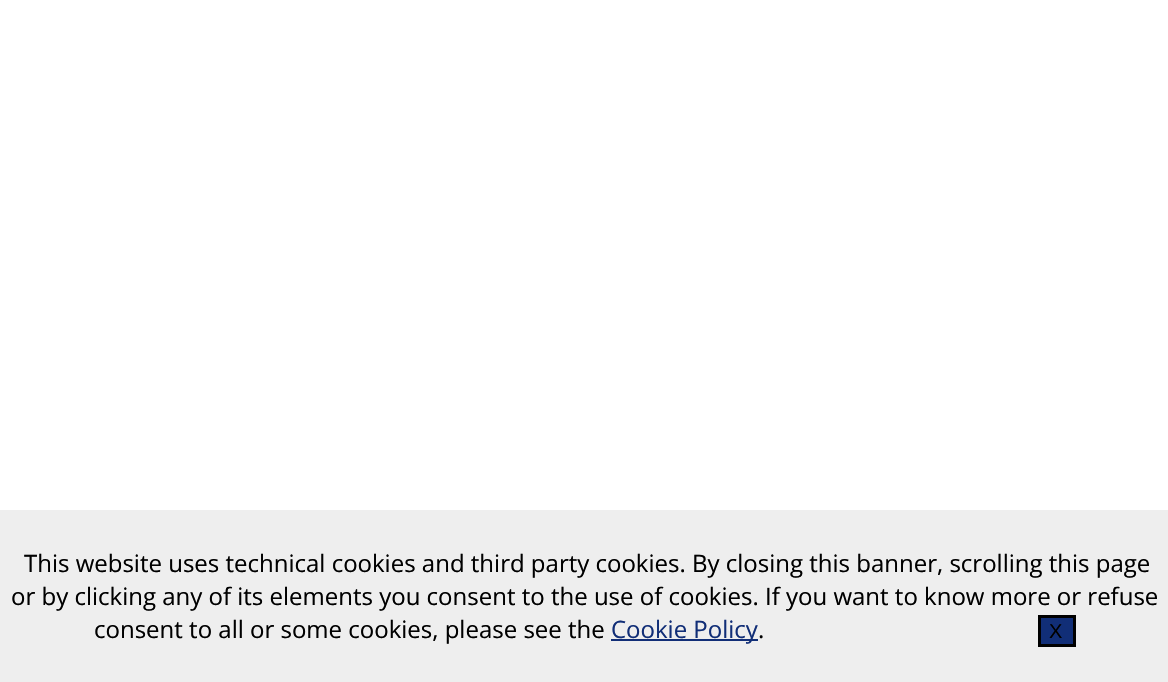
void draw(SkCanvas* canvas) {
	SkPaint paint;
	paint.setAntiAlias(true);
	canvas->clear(0xffffffff);
	paint.setColor(0xffeeeeee);
	canvas->drawRect(SkRect::MakeXYWH(0, 510, 1168, 172), paint);
	SkFont f1(fontMgr->matchFamilyStyle("Open Sans", SkFontStyle::Normal()), 24);
	f1.setSubpixel(true);
	paint.setColor(0xff000000);
	canvas->drawString("This website uses technical cookies and third party cookies. By closing this banner, scrolling this page", 24, 572, f1, paint);
	canvas->drawString("or by clicking any of its elements you consent to the use of cookies. If you want to know more or refuse", 11, 605, f1, paint);
	canvas->drawString("consent to all or some cookies, please see the", 94, 638, f1, paint);
	paint.setColor(0xff112e77);
	canvas->drawRect(SkRect::MakeXYWH(611, 639, 147, 2), paint);
	canvas->drawString("Cookie Policy", 611, 638, f1, paint);
	paint.setColor(0xff000000);
	canvas->drawString(".", 758, 638, f1, paint);
	paint.setColor(0xff112e77);
	canvas->drawRect(SkRect::MakeXYWH(1039.5, 616.5, 35, 29), paint);
	paint.setStroke(true);
	paint.setStrokeWidth(3);
	paint.setColor(0xff000000);
	canvas->drawRect(SkRect::MakeXYWH(1039.5, 616.5, 35, 29), paint);
	SkFont f2(fontMgr->matchFamilyStyle("Liberation Sans", SkFontStyle::Normal()), 20);
	f2.setSubpixel(true);
	paint.setStroke(false);
	canvas->drawString("X", 1049, 638, f2, paint);
}
